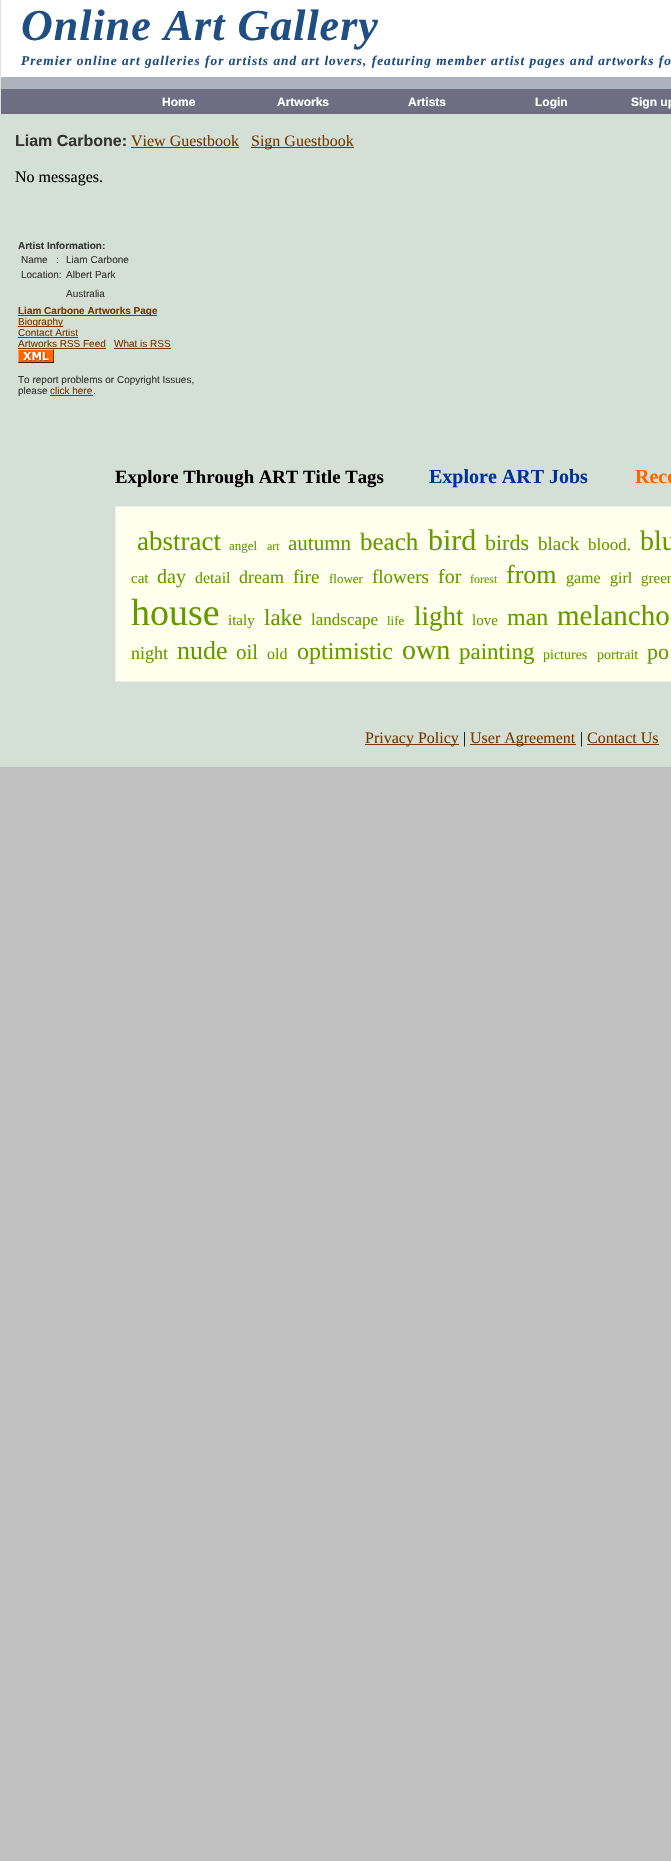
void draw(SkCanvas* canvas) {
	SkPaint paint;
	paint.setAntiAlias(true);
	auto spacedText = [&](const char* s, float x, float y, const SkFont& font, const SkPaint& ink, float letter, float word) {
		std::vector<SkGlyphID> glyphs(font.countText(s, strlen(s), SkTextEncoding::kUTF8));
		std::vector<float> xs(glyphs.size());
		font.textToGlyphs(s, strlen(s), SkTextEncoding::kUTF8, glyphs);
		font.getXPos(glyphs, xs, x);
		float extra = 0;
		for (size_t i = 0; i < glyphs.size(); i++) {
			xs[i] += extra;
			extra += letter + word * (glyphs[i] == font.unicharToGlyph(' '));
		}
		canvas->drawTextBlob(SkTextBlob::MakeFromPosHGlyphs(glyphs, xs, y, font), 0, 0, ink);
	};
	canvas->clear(0xffc0c0c0);
	paint.setColor(0xffffffff);
	canvas->drawRect(SkRect::MakeXYWH(1, 0, 670, 77), paint);
	paint.setColor(0xffe0e0e0);
	canvas->drawRect(SkRect::MakeXYWH(0, 0, 1, 114), paint);
	SkFont f1(fontMgr->matchFamilyStyle("Liberation Serif", SkFontStyle::BoldItalic()), 44);
	f1.setSubpixel(true);
	paint.setColor(0xff1e4e82);
	spacedText("Online Art Gallery", 21, 40, f1, paint, 1, 0);
	SkFont f2(fontMgr->matchFamilyStyle("Liberation Serif", SkFontStyle::BoldItalic()), 13.35);
	f2.setSubpixel(true);
	spacedText("Premier online art galleries for artists and art lovers, featuring member artist pages and artworks fo", 21, 65, f2, paint, 1, 0);
	paint.setColor(0xffadb3bc);
	canvas->drawRect(SkRect::MakeXYWH(1, 77, 670, 12), paint);
	paint.setColor(0xff6f6d82);
	canvas->drawRect(SkRect::MakeXYWH(1, 89, 670, 25), paint);
	SkFont f3(fontMgr->matchFamilyStyle("Liberation Sans", SkFontStyle::Bold()), 12);
	f3.setSubpixel(true);
	paint.setColor(0xffffffff);
	canvas->drawString("Home", 162, 106, f3, paint);
	canvas->drawString("Artworks", 277, 106, f3, paint);
	canvas->drawString("Artists", 408, 106, f3, paint);
	canvas->drawString("Login", 535, 106, f3, paint);
	canvas->drawString("Sign up", 631, 106, f3, paint);
	paint.setColor(0xffd4dfd5);
	canvas->drawRect(SkRect::MakeXYWH(0, 114, 671, 653), paint);
	SkFont f4(fontMgr->matchFamilyStyle("Liberation Sans", SkFontStyle::Bold()), 16);
	f4.setSubpixel(true);
	paint.setColor(0xff333333);
	canvas->drawString("Liam Carbone:", 15, 146, f4, paint);
	SkFont f5(fontMgr->matchFamilyStyle("Liberation Serif", SkFontStyle::Normal()), 16);
	f5.setSubpixel(true);
	paint.setColor(0xff733900);
	canvas->drawString("View Guestbook", 131, 146, f5, paint);
	canvas->drawRect(SkRect::MakeXYWH(131, 147, 108, 1), paint);
	canvas->drawRect(SkRect::MakeXYWH(251, 147, 103, 1), paint);
	canvas->drawString("Sign Guestbook", 251, 146, f5, paint);
	paint.setColor(0xff000000);
	canvas->drawString("No messages.", 15, 182, f5, paint);
	SkFont f6(fontMgr->matchFamilyStyle("Liberation Sans", SkFontStyle::Bold()), 10);
	f6.setSubpixel(true);
	paint.setColor(0xff333333);
	canvas->drawString("Artist Information:", 18, 249, f6, paint);
	SkFont f7(fontMgr->matchFamilyStyle("Liberation Sans", SkFontStyle::Normal()), 10);
	f7.setSubpixel(true);
	canvas->drawString("Name   :", 21, 263, f7, paint);
	canvas->drawString("Liam Carbone", 66, 263, f7, paint);
	canvas->drawString("Location:", 21, 278, f7, paint);
	canvas->drawString("Albert Park", 66, 278, f7, paint);
	canvas->drawString("Australia", 66, 297, f7, paint);
	paint.setColor(0xff733900);
	canvas->drawRect(SkRect::MakeXYWH(18, 315, 139, 1), paint);
	canvas->drawString("Liam Carbone Artworks Page", 18, 314, f6, paint);
	canvas->drawRect(SkRect::MakeXYWH(18, 326, 45, 1), paint);
	canvas->drawString("Biography", 18, 325, f7, paint);
	canvas->drawString("Contact Artist", 18, 336, f7, paint);
	canvas->drawRect(SkRect::MakeXYWH(18, 337, 60, 1), paint);
	canvas->drawString("Artworks RSS Feed", 18, 347, f7, paint);
	canvas->drawRect(SkRect::MakeXYWH(18, 348, 88, 1), paint);
	canvas->drawString("What is RSS", 114, 347, f7, paint);
	canvas->drawRect(SkRect::MakeXYWH(114, 348, 57, 1), paint);
	canvas->drawImageRect(SkImages::DeferredFromEncodedData(SkData::MakeFromFileName("img1.png")), SkRect::MakeXYWH(18, 349, 36, 14), SkSamplingOptions());
	paint.setColor(0xff333333);
	canvas->drawString("To report problems or Copyright Issues,", 18, 383, f7, paint);
	canvas->drawString("please", 18, 394, f7, paint);
	paint.setColor(0xff733900);
	canvas->drawString("click here", 50, 394, f7, paint);
	paint.setColor(0xff333333);
	canvas->drawString(".", 93, 394, f7, paint);
	paint.setColor(0xff733900);
	canvas->drawRect(SkRect::MakeXYWH(50, 395, 43, 1), paint);
	SkFont f8(fontMgr->matchFamilyStyle("Liberation Serif", SkFontStyle::Bold()), 18.75);
	f8.setSubpixel(true);
	paint.setColor(0xff000000);
	canvas->drawString("Explore Through ART Title Tags", 115, 483, f8, paint);
	SkFont f9(fontMgr->matchFamilyStyle("Liberation Serif", SkFontStyle::Bold()), 20);
	f9.setSubpixel(true);
	paint.setColor(0xff003399);
	canvas->drawString("Explore ART Jobs", 429, 483, f9, paint);
	paint.setColor(0xffff6600);
	canvas->drawString("Rece", 635, 483, f9, paint);
	paint.setColor(0xffffffee);
	canvas->drawRect(SkRect::MakeXYWH(115.5, 506.5, 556, 175), paint);
	paint.setStroke(true);
	paint.setStrokeWidth(1);
	paint.setColor(0xffeeeeee);
	canvas->drawRect(SkRect::MakeXYWH(115.5, 506.5, 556, 175), paint);
	SkFont f10(fontMgr->matchFamilyStyle("Liberation Serif", SkFontStyle::Normal()), 27);
	f10.setSubpixel(true);
	paint.setStroke(false);
	paint.setColor(0xff669900);
	canvas->drawString("abstract", 137, 550, f10, paint);
	SkFont f11(fontMgr->matchFamilyStyle("Liberation Serif", SkFontStyle::Normal()), 13);
	f11.setSubpixel(true);
	canvas->drawString("angel", 229, 550, f11, paint);
	SkFont f12(fontMgr->matchFamilyStyle("Liberation Serif", SkFontStyle::Normal()), 12);
	f12.setSubpixel(true);
	canvas->drawString("art", 267, 550, f12, paint);
	SkFont f13(fontMgr->matchFamilyStyle("Liberation Serif", SkFontStyle::Normal()), 21);
	f13.setSubpixel(true);
	canvas->drawString("autumn", 288, 550, f13, paint);
	SkFont f14(fontMgr->matchFamilyStyle("Liberation Serif", SkFontStyle::Normal()), 25);
	f14.setSubpixel(true);
	canvas->drawString("beach", 360, 550, f14, paint);
	SkFont f15(fontMgr->matchFamilyStyle("Liberation Serif", SkFontStyle::Normal()), 30);
	f15.setSubpixel(true);
	canvas->drawString("bird", 428, 550, f15, paint);
	SkFont f16(fontMgr->matchFamilyStyle("Liberation Serif", SkFontStyle::Normal()), 22);
	f16.setSubpixel(true);
	canvas->drawString("birds", 485, 550, f16, paint);
	SkFont f17(fontMgr->matchFamilyStyle("Liberation Serif", SkFontStyle::Normal()), 19);
	f17.setSubpixel(true);
	canvas->drawString("black", 538, 550, f17, paint);
	SkFont f18(fontMgr->matchFamilyStyle("Liberation Serif", SkFontStyle::Normal()), 17);
	f18.setSubpixel(true);
	canvas->drawString("blood.", 588, 550, f18, paint);
	SkFont f19(fontMgr->matchFamilyStyle("Liberation Serif", SkFontStyle::Normal()), 28);
	f19.setSubpixel(true);
	canvas->drawString("blu", 640, 550, f19, paint);
	SkFont f20(fontMgr->matchFamilyStyle("Liberation Serif", SkFontStyle::Normal()), 15);
	f20.setSubpixel(true);
	canvas->drawString("cat", 131, 583, f20, paint);
	SkFont f21(fontMgr->matchFamilyStyle("Liberation Serif", SkFontStyle::Normal()), 20);
	f21.setSubpixel(true);
	canvas->drawString("day", 157, 583, f21, paint);
	canvas->drawString("detail", 195, 583, f5, paint);
	SkFont f22(fontMgr->matchFamilyStyle("Liberation Serif", SkFontStyle::Normal()), 18);
	f22.setSubpixel(true);
	canvas->drawString("dream", 239, 583, f22, paint);
	canvas->drawString("fire", 293, 583, f17, paint);
	canvas->drawString("flower", 329, 583, f11, paint);
	canvas->drawString("flowers", 372, 583, f17, paint);
	canvas->drawString("for", 438, 583, f21, paint);
	canvas->drawString("forest", 470, 583, f12, paint);
	SkFont f23(fontMgr->matchFamilyStyle("Liberation Serif", SkFontStyle::Normal()), 26);
	f23.setSubpixel(true);
	canvas->drawString("from", 506, 583, f23, paint);
	canvas->drawString("game", 566, 583, f5, paint);
	canvas->drawString("girl", 610, 583, f5, paint);
	canvas->drawString("green", 641, 583, f20, paint);
	SkFont f24(fontMgr->matchFamilyStyle("Liberation Serif", SkFontStyle::Normal()), 38);
	f24.setSubpixel(true);
	canvas->drawString("house", 131, 625, f24, paint);
	canvas->drawString("italy", 228, 625, f20, paint);
	SkFont f25(fontMgr->matchFamilyStyle("Liberation Serif", SkFontStyle::Normal()), 23);
	f25.setSubpixel(true);
	canvas->drawString("lake", 264, 625, f25, paint);
	canvas->drawString("landscape", 311, 625, f18, paint);
	canvas->drawString("life", 387, 625, f11, paint);
	canvas->drawString("light", 414, 625, f10, paint);
	canvas->drawString("love", 472, 625, f20, paint);
	SkFont f26(fontMgr->matchFamilyStyle("Liberation Serif", SkFontStyle::Normal()), 24);
	f26.setSubpixel(true);
	canvas->drawString("man", 507, 625, f26, paint);
	SkFont f27(fontMgr->matchFamilyStyle("Liberation Serif", SkFontStyle::Normal()), 29);
	f27.setSubpixel(true);
	canvas->drawString("melancho", 557, 625, f27, paint);
	canvas->drawString("night", 131, 659, f22, paint);
	canvas->drawString("nude", 177, 659, f23, paint);
	canvas->drawString("oil", 236, 659, f13, paint);
	canvas->drawString("old", 267, 659, f5, paint);
	canvas->drawString("optimistic", 297, 659, f26, paint);
	canvas->drawString("own", 402, 659, f19, paint);
	canvas->drawString("painting", 459, 659, f25, paint);
	SkFont f28(fontMgr->matchFamilyStyle("Liberation Serif", SkFontStyle::Normal()), 14);
	f28.setSubpixel(true);
	canvas->drawString("pictures", 543, 659, f28, paint);
	canvas->drawString("portrait", 597, 659, f28, paint);
	canvas->drawString("po", 647, 659, f16, paint);
	paint.setColor(0xff733900);
	canvas->drawRect(SkRect::MakeXYWH(365, 744, 94, 1), paint);
	canvas->drawString("Privacy Policy", 365, 743, f5, paint);
	paint.setColor(0xff000000);
	canvas->drawString("|", 463, 743, f5, paint);
	paint.setColor(0xff733900);
	canvas->drawRect(SkRect::MakeXYWH(470, 744, 106, 1), paint);
	canvas->drawString("User Agreement", 470, 743, f5, paint);
	paint.setColor(0xff000000);
	canvas->drawString("|", 580, 743, f5, paint);
	paint.setColor(0xff733900);
	canvas->drawString("Contact Us", 587, 743, f5, paint);
	canvas->drawRect(SkRect::MakeXYWH(587, 744, 72, 1), paint);
}
